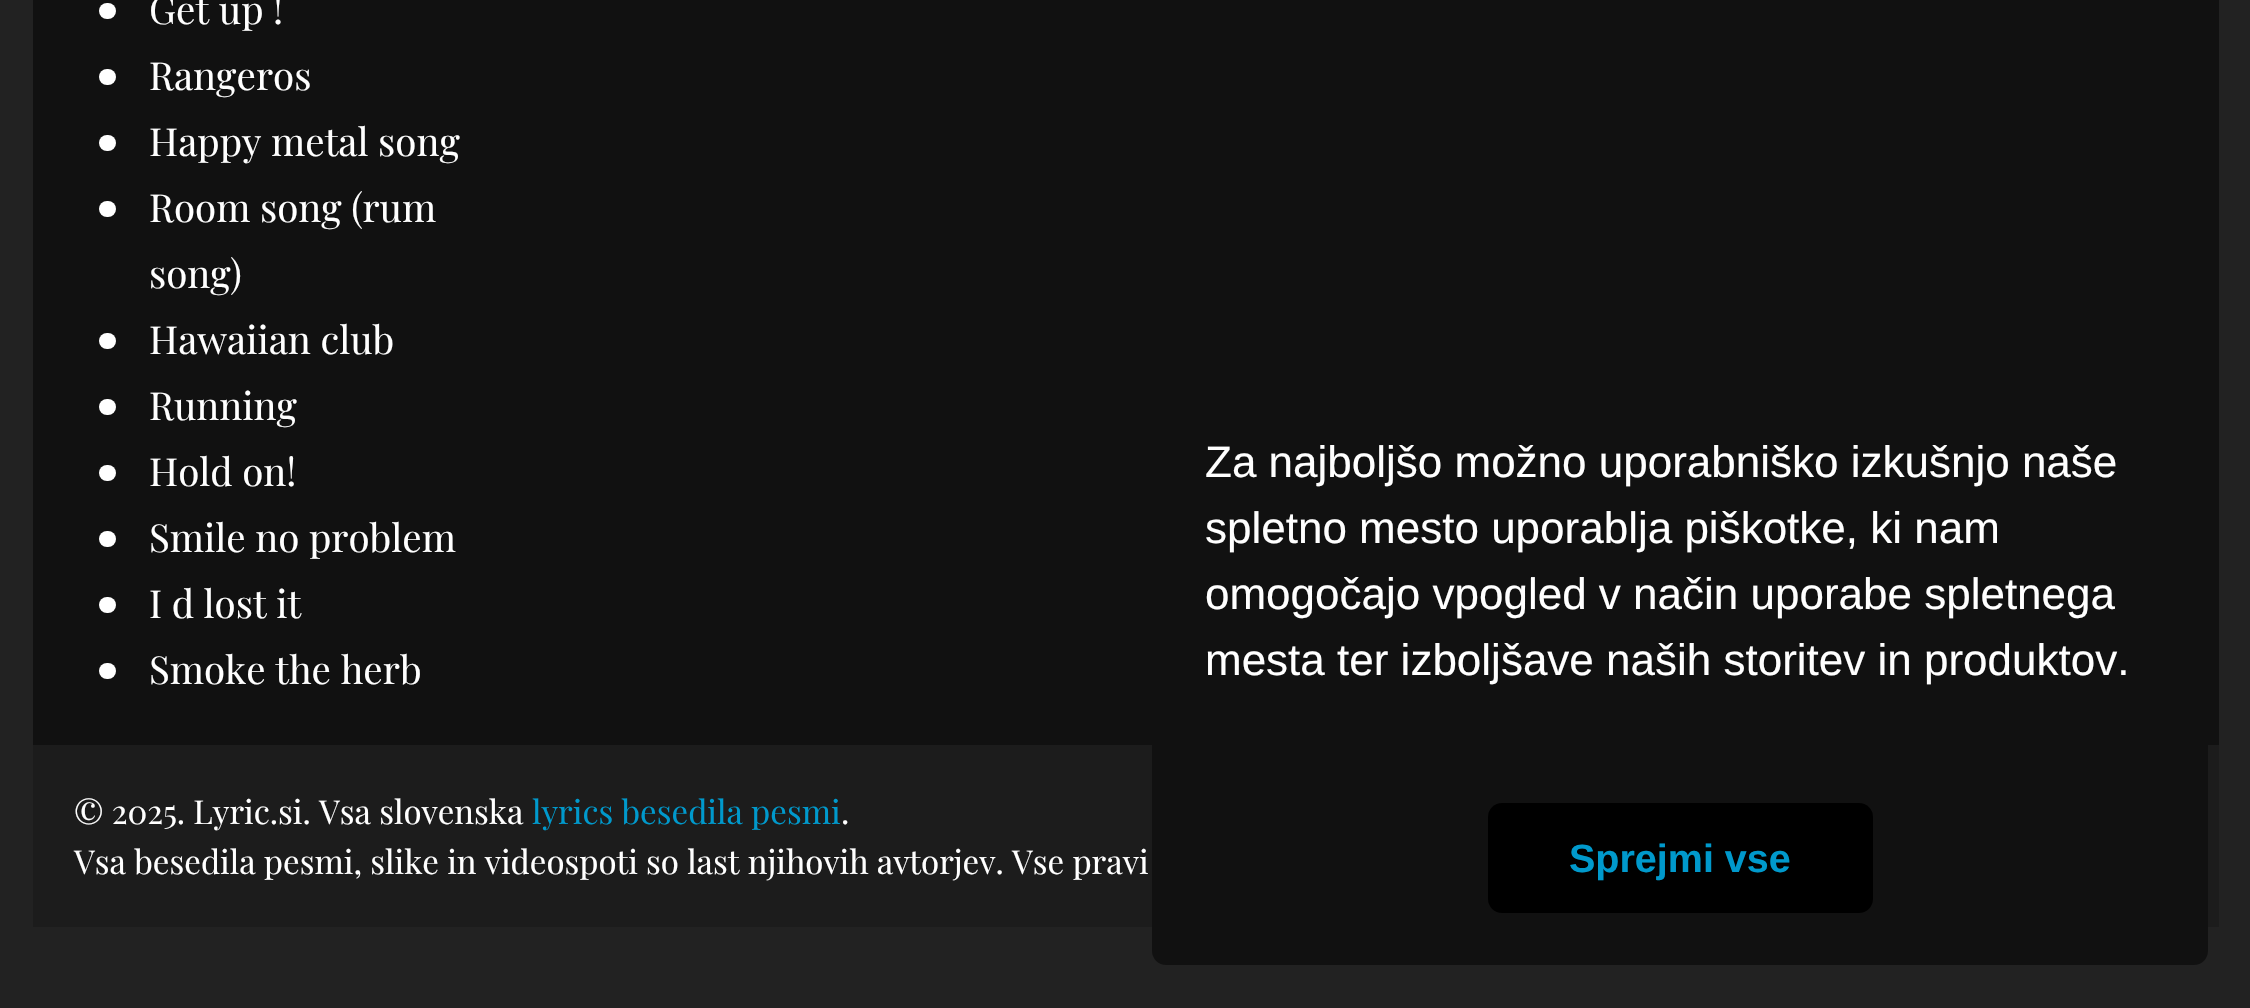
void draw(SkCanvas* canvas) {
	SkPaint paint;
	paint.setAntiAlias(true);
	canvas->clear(0xff222222);
	paint.setColor(0xff111111);
	canvas->drawRect(SkRect::MakeXYWH(33, 0, 2186, 745), paint);
	paint.setColor(0xffffffff);
	canvas->drawRoundRect(SkRect::MakeXYWH(99, 3, 17, 16), 8, 8, paint);
	SkFont f1(fontMgr->matchFamilyStyle("Playfair Display", SkFontStyle::Normal()), 38.5);
	f1.setSubpixel(true);
	canvas->drawString("Get up !", 149, 24, f1, paint);
	canvas->drawRoundRect(SkRect::MakeXYWH(99, 69, 17, 16), 8, 8, paint);
	canvas->drawString("Rangeros", 149, 90, f1, paint);
	canvas->drawRoundRect(SkRect::MakeXYWH(99, 135, 17, 16), 8, 8, paint);
	canvas->drawString("Happy metal song", 149, 156, f1, paint);
	canvas->drawRoundRect(SkRect::MakeXYWH(99, 201, 17, 16), 8, 8, paint);
	canvas->drawString("Room song (rum", 149, 222, f1, paint);
	canvas->drawString("song)", 149, 288, f1, paint);
	canvas->drawRoundRect(SkRect::MakeXYWH(99, 333, 17, 16), 8, 8, paint);
	canvas->drawString("Hawaiian club", 149, 354, f1, paint);
	canvas->drawRoundRect(SkRect::MakeXYWH(99, 399, 17, 16), 8, 8, paint);
	canvas->drawString("Running", 149, 420, f1, paint);
	canvas->drawRoundRect(SkRect::MakeXYWH(99, 465, 17, 16), 8, 8, paint);
	canvas->drawString("Hold on!", 149, 486, f1, paint);
	canvas->drawRoundRect(SkRect::MakeXYWH(99, 531, 17, 16), 8, 8, paint);
	canvas->drawString("Smile no problem", 149, 552, f1, paint);
	canvas->drawRoundRect(SkRect::MakeXYWH(99, 597, 17, 16), 8, 8, paint);
	canvas->drawString("I d lost it", 149, 618, f1, paint);
	canvas->drawRoundRect(SkRect::MakeXYWH(99, 663, 17, 16), 8, 8, paint);
	canvas->drawString("Smoke the herb", 149, 684, f1, paint);
	paint.setColor(0xff1c1c1c);
	canvas->drawRect(SkRect::MakeXYWH(33, 745, 2186, 182), paint);
	paint.setColor(0xff111111);
	canvas->drawRoundRect(SkRect::MakeXYWH(1152, 377, 1056, 588), 14, 14, paint);
	SkFont f2(fontMgr->matchFamilyStyle("Liberation Sans", SkFontStyle::Normal()), 44);
	f2.setSubpixel(true);
	paint.setColor(0xffffffff);
	canvas->drawString("Za najboljšo možno uporabniško izkušnjo naše", 1205, 477, f2, paint);
	canvas->drawString("spletno mesto uporablja piškotke, ki nam", 1205, 543, f2, paint);
	canvas->drawString("omogočajo vpogled v način uporabe spletnega", 1205, 609, f2, paint);
	canvas->drawString("mesta ter izboljšave naših storitev in produktov.", 1205, 675, f2, paint);
	paint.setColor(0xff000000);
	canvas->drawRoundRect(SkRect::MakeXYWH(1488, 803, 385, 110), 14, 14, paint);
	SkFont f3(fontMgr->matchFamilyStyle("Liberation Sans", SkFontStyle::Bold()), 39.5);
	f3.setSubpixel(true);
	paint.setColor(0xff0099cc);
	canvas->drawString("Sprejmi vse", 1569, 872, f3, paint);
	SkFont f4(fontMgr->matchFamilyStyle("Playfair Display", SkFontStyle::Normal()), 33);
	f4.setSubpixel(true);
	paint.setColor(0xffffffff);
	canvas->drawString("© 2025. Lyric.si. Vsa slovenska", 74, 824, f4, paint);
	paint.setColor(0xff0099cc);
	canvas->drawString("lyrics besedila pesmi", 532, 824, f4, paint);
	paint.setColor(0xffffffff);
	canvas->drawString(".", 841, 824, f4, paint);
	canvas->drawString("Vsa besedila pesmi, slike in videospoti so last njihovih avtorjev. Vse pravi", 74, 874, f4, paint);
}
